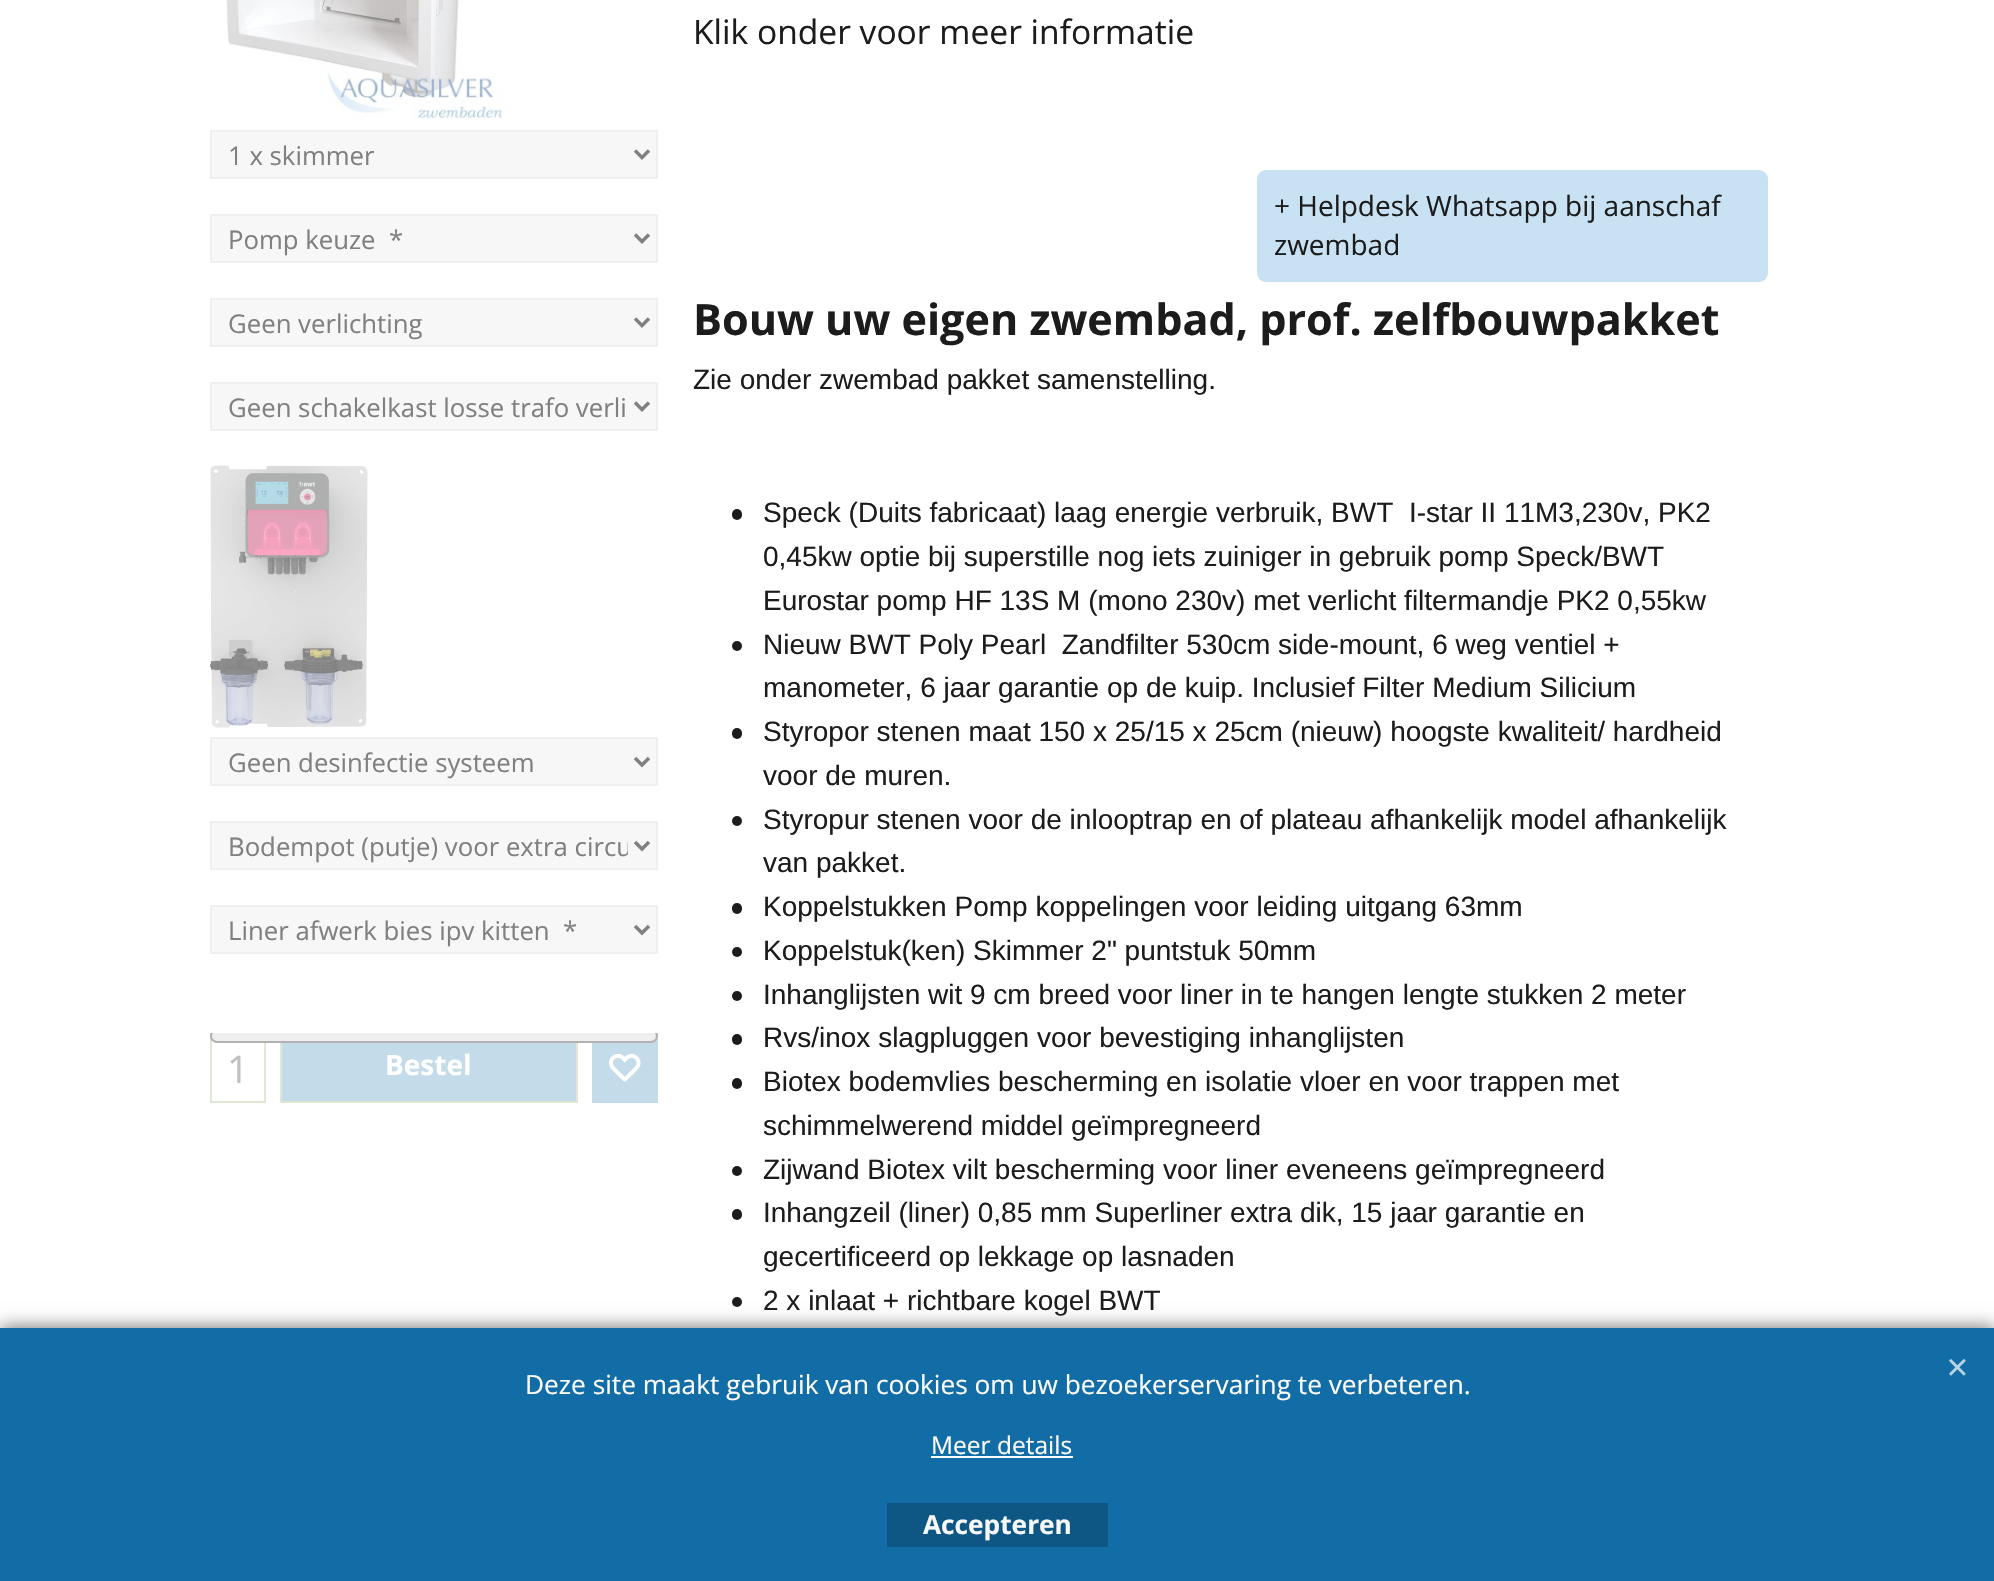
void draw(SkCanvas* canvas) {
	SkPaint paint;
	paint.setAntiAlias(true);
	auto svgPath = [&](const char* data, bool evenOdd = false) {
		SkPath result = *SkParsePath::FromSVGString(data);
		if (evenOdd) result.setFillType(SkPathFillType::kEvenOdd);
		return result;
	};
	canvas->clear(0xffffffff);
	canvas->drawImageRect(SkImages::DeferredFromEncodedData(SkData::MakeFromFileName("img1.png")), SkRect::MakeXYWH(226, 0, 277, 121), SkSamplingOptions());
	paint.setColor(0xfff7f7f7);
	canvas->drawRect(SkRect::MakeXYWH(211, 131, 446, 47), paint);
	paint.setStroke(true);
	paint.setStrokeWidth(2);
	paint.setColor(0xffefefef);
	canvas->drawRect(SkRect::MakeXYWH(211, 131, 446, 47), paint);
	paint.setStrokeWidth(3.5);
	paint.setColor(0xff808080);
	canvas->drawPath(svgPath("M635 150.5L642 157.5L649 150.5"), paint);
	SkFont f1(fontMgr->matchFamilyStyle("Open Sans", SkFontStyle::Normal()), 25.75);
	f1.setSubpixel(true);
	paint.setStroke(false);
	canvas->drawString("1 x skimmer", 228, 165, f1, paint);
	paint.setColor(0xfff7f7f7);
	canvas->drawRect(SkRect::MakeXYWH(211, 215, 446, 47), paint);
	paint.setStroke(true);
	paint.setStrokeWidth(2);
	paint.setColor(0xffefefef);
	canvas->drawRect(SkRect::MakeXYWH(211, 215, 446, 47), paint);
	paint.setStrokeWidth(3.5);
	paint.setColor(0xff808080);
	canvas->drawPath(svgPath("M635 234.5L642 241.5L649 234.5"), paint);
	paint.setStroke(false);
	canvas->drawString("Pomp keuze  *", 228, 249, f1, paint);
	paint.setColor(0xfff7f7f7);
	canvas->drawRect(SkRect::MakeXYWH(211, 299, 446, 47), paint);
	paint.setStroke(true);
	paint.setStrokeWidth(2);
	paint.setColor(0xffefefef);
	canvas->drawRect(SkRect::MakeXYWH(211, 299, 446, 47), paint);
	paint.setStrokeWidth(3.5);
	paint.setColor(0xff808080);
	canvas->drawPath(svgPath("M635 318.5L642 325.5L649 318.5"), paint);
	paint.setStroke(false);
	canvas->drawString("Geen verlichting", 228, 333, f1, paint);
	paint.setColor(0xfff7f7f7);
	canvas->drawRect(SkRect::MakeXYWH(211, 383, 446, 47), paint);
	paint.setStroke(true);
	paint.setStrokeWidth(2);
	paint.setColor(0xffefefef);
	canvas->drawRect(SkRect::MakeXYWH(211, 383, 446, 47), paint);
	paint.setStrokeWidth(3.5);
	paint.setColor(0xff808080);
	canvas->drawPath(svgPath("M635 402.5L642 409.5L649 402.5"), paint);
	paint.setStroke(false);
	canvas->drawString("Geen schakelkast losse trafo verli", 228, 417, f1, paint);
	canvas->drawImageRect(SkImages::DeferredFromEncodedData(SkData::MakeFromFileName("img2.png")), SkRect::MakeXYWH(210, 465, 158, 263), SkSamplingOptions());
	paint.setColor(0xfff7f7f7);
	canvas->drawRect(SkRect::MakeXYWH(211, 738, 446, 47), paint);
	paint.setStroke(true);
	paint.setStrokeWidth(2);
	paint.setColor(0xffefefef);
	canvas->drawRect(SkRect::MakeXYWH(211, 738, 446, 47), paint);
	paint.setStrokeWidth(3.5);
	paint.setColor(0xff808080);
	canvas->drawPath(svgPath("M635 758L642 765L649 758"), paint);
	paint.setStroke(false);
	canvas->drawString("Geen desinfectie systeem", 228, 772, f1, paint);
	paint.setColor(0xfff7f7f7);
	canvas->drawRect(SkRect::MakeXYWH(211, 822, 446, 47), paint);
	paint.setStroke(true);
	paint.setStrokeWidth(2);
	paint.setColor(0xffefefef);
	canvas->drawRect(SkRect::MakeXYWH(211, 822, 446, 47), paint);
	paint.setStrokeWidth(3.5);
	paint.setColor(0xff808080);
	canvas->drawPath(svgPath("M635 842L642 849L649 842"), paint);
	canvas->save();
	canvas->clipRect(SkRect::MakeXYWH(228, 826, 400, 39));
	paint.setStroke(false);
	canvas->drawString("Bodempot (putje) voor extra circu", 228, 856, f1, paint);
	canvas->restore();
	paint.setColor(0xfff7f7f7);
	canvas->drawRect(SkRect::MakeXYWH(211, 906, 446, 47), paint);
	paint.setStroke(true);
	paint.setStrokeWidth(2);
	paint.setColor(0xffefefef);
	canvas->drawRect(SkRect::MakeXYWH(211, 906, 446, 47), paint);
	paint.setStrokeWidth(3.5);
	paint.setColor(0xff808080);
	canvas->drawPath(svgPath("M635 926L642 933L649 926"), paint);
	paint.setStroke(false);
	canvas->drawString("Liner afwerk bies ipv kitten  *", 228, 940, f1, paint);
	paint.setStroke(true);
	paint.setStrokeWidth(2);
	paint.setColor(0xffe0e7d5);
	canvas->drawRect(SkRect::MakeXYWH(211, 1034, 54, 68), paint);
	paint.setStroke(false);
	paint.setColor(0xffc4dbe9);
	canvas->drawRect(SkRect::MakeXYWH(282, 1043, 294, 58), paint);
	paint.setStroke(true);
	paint.setColor(0xffe0e7d5);
	canvas->drawRect(SkRect::MakeXYWH(281, 1034, 296, 68), paint);
	paint.setStroke(false);
	paint.setColor(0xffc4dbe9);
	canvas->drawRect(SkRect::MakeXYWH(592, 1033, 66, 70), paint);
	canvas->save();
	canvas->clipRect(SkRect::MakeXYWH(210, 1033, 448, 70));
	paint.setStroke(true);
	paint.setColor(0xffd9d9d9);
	canvas->drawRoundRect(SkRect::MakeXYWH(211, 1030, 446, 12), 6, 6, paint);
	paint.setStroke(false);
	paint.setColor(0xffefefef);
	canvas->drawRoundRect(SkRect::MakeXYWH(211, 1030, 446, 12), 6, 6, paint);
	paint.setStroke(true);
	paint.setColor(0xffb2b2b2);
	canvas->drawRoundRect(SkRect::MakeXYWH(211, 1030, 446, 12), 6, 6, paint);
	canvas->restore();
	SkFont f2(fontMgr->matchFamilyStyle("Open Sans", SkFontStyle::Normal()), 38);
	f2.setSubpixel(true);
	paint.setStroke(false);
	paint.setColor(0xffc0c0c0);
	canvas->drawString("1", 227, 1083, f2, paint);
	SkFont f3(fontMgr->matchFamilyStyle("Open Sans", SkFontStyle::Bold()), 28);
	f3.setSubpixel(true);
	paint.setColor(0xffffffff);
	canvas->drawString("Bestel", 385, 1075, f3, paint);
	canvas->drawImageRect(SkImages::DeferredFromEncodedData(SkData::MakeFromFileName("img3.png")), SkRect::MakeXYWH(609, 1053, 32, 29), SkSamplingOptions());
	SkFont f4(fontMgr->matchFamilyStyle("Open Sans", SkFontStyle::Normal()), 33.6);
	f4.setSubpixel(true);
	paint.setColor(0xff1c1c1c);
	canvas->drawString("Klik onder voor meer informatie", 693, 44, f4, paint);
	paint.setColor(0xffc8e2f3);
	canvas->drawRoundRect(SkRect::MakeXYWH(1257, 170, 511, 112), 9, 9, paint);
	SkFont f5(fontMgr->matchFamilyStyle("Open Sans", SkFontStyle::Normal()), 28);
	f5.setSubpixel(true);
	paint.setColor(0xff1c1c1c);
	canvas->drawString("+ Helpdesk Whatsapp bij aanschaf", 1274, 216, f5, paint);
	canvas->drawString("zwembad", 1274, 255, f5, paint);
	SkFont f6(fontMgr->matchFamilyStyle("Open Sans", SkFontStyle::Bold()), 43.1);
	f6.setSubpixel(true);
	canvas->drawString("Bouw uw eigen zwembad, prof. zelfbouwpakket", 693, 335, f6, paint);
	SkFont f7(fontMgr->matchFamilyStyle("Liberation Sans", SkFontStyle::Normal()), 28);
	f7.setSubpixel(true);
	canvas->drawString("Zie onder zwembad pakket samenstelling.", 693, 389, f7, paint);
	canvas->drawRoundRect(SkRect::MakeXYWH(732, 509, 10, 11), 5, 5, paint);
	canvas->drawString("Speck (Duits fabricaat) laag energie verbruik, BWT", 763, 522, f7, paint);
	canvas->drawString("I-star II 11M3,230v, PK2", 1409, 522, f7, paint);
	canvas->drawString("0,45kw optie bij superstille nog iets zuiniger in gebruik pomp Speck/BWT", 763, 566, f7, paint);
	canvas->drawString("Eurostar pomp HF 13S M (mono 230v) met verlicht filtermandje PK2 0,55kw", 763, 610, f7, paint);
	canvas->drawCircle(737, 646, 5, paint);
	canvas->drawString("Nieuw BWT Poly Pearl  Zandfilter 530cm side-mount, 6 weg ventiel +", 763, 654, f7, paint);
	canvas->drawString("manometer, 6 jaar garantie op de kuip. Inclusief Filter Medium Silicium", 763, 697, f7, paint);
	canvas->drawRoundRect(SkRect::MakeXYWH(732, 728, 10, 11), 5, 5, paint);
	canvas->drawString("Styropor stenen maat 150 x 25/15 x 25cm (nieuw) hoogste kwaliteit/ hardheid", 763, 741, f7, paint);
	canvas->drawString("voor de muren.", 763, 785, f7, paint);
	canvas->drawCircle(737, 821, 5, paint);
	canvas->drawString("Styropur stenen voor de inlooptrap en of plateau afhankelijk model afhankelijk", 763, 829, f7, paint);
	canvas->drawString("van pakket.", 763, 872, f7, paint);
	canvas->drawRoundRect(SkRect::MakeXYWH(732, 903, 10, 11), 5, 5, paint);
	canvas->drawString("Koppelstukken Pomp koppelingen voor leiding uitgang 63mm", 763, 916, f7, paint);
	canvas->drawCircle(737, 952, 5, paint);
	canvas->drawString("Koppelstuk(ken) Skimmer 2\" puntstuk 50mm", 763, 960, f7, paint);
	canvas->drawCircle(737, 996, 5, paint);
	canvas->drawString("Inhanglijsten wit 9 cm breed voor liner in te hangen lengte stukken 2 meter", 763, 1004, f7, paint);
	canvas->drawRoundRect(SkRect::MakeXYWH(732, 1034, 10, 11), 5, 5, paint);
	canvas->drawString("Rvs/inox slagpluggen voor bevestiging inhanglijsten", 763, 1047, f7, paint);
	canvas->drawRoundRect(SkRect::MakeXYWH(732, 1078, 10, 11), 5, 5, paint);
	canvas->drawString("Biotex bodemvlies bescherming en isolatie vloer en voor trappen met", 763, 1091, f7, paint);
	canvas->drawString("schimmelwerend middel geïmpregneerd", 763, 1135, f7, paint);
	canvas->drawCircle(737, 1171, 5, paint);
	canvas->drawString("Zijwand Biotex vilt bescherming voor liner eveneens geïmpregneerd", 763, 1179, f7, paint);
	canvas->drawRoundRect(SkRect::MakeXYWH(732, 1209, 10, 11), 5, 5, paint);
	canvas->drawString("Inhangzeil (liner) 0,85 mm Superliner extra dik, 15 jaar garantie en", 763, 1222, f7, paint);
	canvas->drawString("gecertificeerd op lekkage op lasnaden", 763, 1266, f7, paint);
	canvas->drawCircle(737, 1302, 5, paint);
	canvas->drawString("2 x inlaat + richtbare kogel BWT", 763, 1310, f7, paint);
	paint.setColor(0xff666666);
	paint.setMaskFilter(SkMaskFilter::MakeBlur(kNormal_SkBlurStyle, 9));
	canvas->drawRect(SkRect::MakeXYWH(0, 1328, 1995, 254), paint);
	paint.setMaskFilter(nullptr);
	paint.setColor(0xff126ca5);
	canvas->drawRect(SkRect::MakeXYWH(0, 1328, 1994, 253), paint);
	canvas->drawImageRect(SkImages::DeferredFromEncodedData(SkData::MakeFromFileName("img4.png")), SkRect::MakeXYWH(1949, 1359, 17, 17), SkSamplingOptions());
	SkFont f8(fontMgr->matchFamilyStyle("Open Sans", SkFontStyle::Normal()), 26.25);
	f8.setSubpixel(true);
	paint.setColor(0xffffffff);
	canvas->drawString("Deze site maakt gebruik van cookies om uw bezoekerservaring te verbeteren.", 525, 1394, f8, paint);
	SkFont f9(fontMgr->matchFamilyStyle("Open Sans", SkFontStyle::Normal()), 24.5);
	f9.setSubpixel(true);
	canvas->drawString("Meer details", 931, 1454, f9, paint);
	canvas->drawRect(SkRect::MakeXYWH(931, 1456, 142, 2), paint);
	paint.setColor(0xff0e5684);
	canvas->drawRect(SkRect::MakeXYWH(887, 1503, 221, 44), paint);
	SkFont f10(fontMgr->matchFamilyStyle("Open Sans", SkFontStyle::Bold()), 26.25);
	f10.setSubpixel(true);
	paint.setColor(0xfff7f7f7);
	canvas->drawString("Accepteren", 923, 1534, f10, paint);
}
